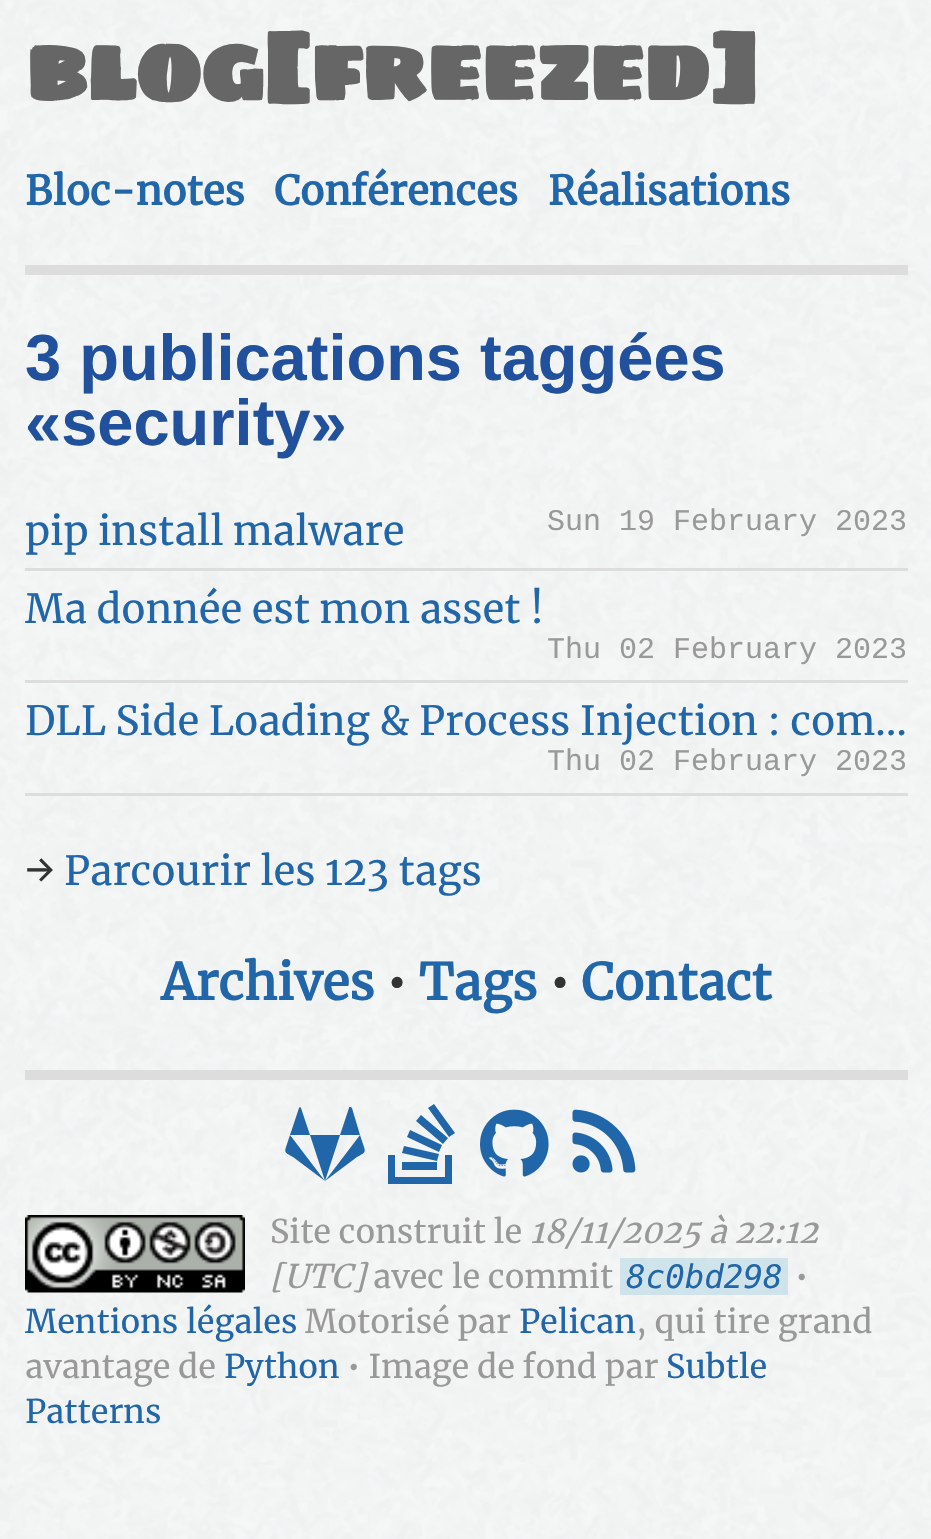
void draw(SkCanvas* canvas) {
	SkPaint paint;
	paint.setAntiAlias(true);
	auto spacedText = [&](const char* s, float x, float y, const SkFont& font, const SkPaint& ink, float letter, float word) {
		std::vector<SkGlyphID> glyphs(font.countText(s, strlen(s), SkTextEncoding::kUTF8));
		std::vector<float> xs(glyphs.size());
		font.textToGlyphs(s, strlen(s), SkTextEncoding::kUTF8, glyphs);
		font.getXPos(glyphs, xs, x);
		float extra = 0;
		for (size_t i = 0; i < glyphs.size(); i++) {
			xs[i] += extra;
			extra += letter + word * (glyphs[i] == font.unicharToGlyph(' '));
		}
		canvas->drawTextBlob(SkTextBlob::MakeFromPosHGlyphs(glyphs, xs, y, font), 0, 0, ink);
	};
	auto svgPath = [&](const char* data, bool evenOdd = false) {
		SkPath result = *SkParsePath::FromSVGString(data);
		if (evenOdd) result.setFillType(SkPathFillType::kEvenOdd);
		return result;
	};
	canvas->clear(0xffffffff);
	canvas->drawImageRect(SkImages::DeferredFromEncodedData(SkData::MakeFromFileName("img1.png")), SkRect::MakeXYWH(0, 0, 931, 1539), SkSamplingOptions());
	paint.setColor(0xffdddddd);
	canvas->drawRect(SkRect::MakeXYWH(25, 265, 883, 10), paint);
	SkFont f1(fontMgr->matchFamilyStyle("Sigmar One", SkFontStyle::Bold()), 90);
	f1.setSubpixel(true);
	paint.setColor(0xff666666);
	spacedText("blog[freezed]", 25, 100, f1, paint, -2.5, 0);
	SkFont f2(fontMgr->matchFamilyStyle("Merriweather", SkFontStyle::Bold()), 40);
	f2.setSubpixel(true);
	paint.setColor(0xff2266aa);
	canvas->drawString("Bloc-notes", 25, 205, f2, paint);
	canvas->drawString("Conférences", 274, 205, f2, paint);
	canvas->drawString("Réalisations", 548, 205, f2, paint);
	SkFont f3(fontMgr->matchFamilyStyle("Liberation Sans", SkFontStyle::Bold()), 65);
	f3.setSubpixel(true);
	paint.setColor(0xff21519c);
	canvas->drawString("3 publications taggées", 25, 380, f3, paint);
	canvas->drawString("«security»", 25, 445, f3, paint);
	paint.setColor(0xffdddddd);
	canvas->drawRect(SkRect::MakeXYWH(25, 568, 883, 3), paint);
	SkFont f4(fontMgr->matchFamilyStyle("Merriweather", SkFontStyle::Normal()), 40);
	f4.setSubpixel(true);
	paint.setColor(0xff2266aa);
	canvas->drawString("pip install malware", 25, 545, f4, paint);
	SkFont f5(fontMgr->matchFamilyStyle("Liberation Mono", SkFontStyle::Normal()), 30);
	f5.setSubpixel(true);
	paint.setColor(0xff999999);
	canvas->drawString("Sun 19 February 2023", 547, 530, f5, paint);
	paint.setColor(0xffdddddd);
	canvas->drawRect(SkRect::MakeXYWH(25, 680, 883, 3), paint);
	paint.setColor(0xff2266aa);
	canvas->drawString("Ma donnée est mon asset !", 25, 623, f4, paint);
	paint.setColor(0xff999999);
	canvas->drawString("Thu 02 February 2023", 547, 658, f5, paint);
	paint.setColor(0xffdddddd);
	canvas->drawRect(SkRect::MakeXYWH(25, 793, 883, 3), paint);
	paint.setColor(0xff2266aa);
	canvas->drawString("DLL Side Loading & Process Injection : com…", 25, 735, f4, paint);
	paint.setColor(0xff999999);
	canvas->drawString("Thu 02 February 2023", 547, 770, f5, paint);
	paint.setColor(0xff333333);
	canvas->drawString("→", 25, 885, f4, paint);
	paint.setColor(0xff2266aa);
	canvas->drawString("Parcourir les 123 tags", 64, 885, f4, paint);
	SkFont f6(fontMgr->matchFamilyStyle("Merriweather", SkFontStyle::Bold()), 50);
	f6.setSubpixel(true);
	canvas->drawString("Archives", 161, 1000, f6, paint);
	paint.setColor(0xff333333);
	canvas->drawString("•", 386, 1000, f6, paint);
	paint.setColor(0xff2266aa);
	canvas->drawString("Tags", 419, 1000, f6, paint);
	paint.setColor(0xff333333);
	canvas->drawString("•", 549, 1000, f6, paint);
	paint.setColor(0xff2266aa);
	canvas->drawString("Contact", 581, 1000, f6, paint);
	paint.setColor(0xffdddddd);
	canvas->drawRect(SkRect::MakeXYWH(25, 1070, 883, 10), paint);
	paint.setColor(0xff2266aa);
	canvas->drawPath(svgPath("M290 1135L325 1181L293 1157C286 1153 284 1153 286 1147ZM310 1135H340L325 1181ZM301 1108L310 1135H290L299 1108C299 1107 301 1107 301 1108ZM360 1135L364 1147C366 1153 364 1153 357 1157L325 1181ZM360 1135H340L349 1108C349 1107 349 1107 350 1107C351 1107 351 1107 352 1108Z"), paint);
	canvas->drawPath(svgPath("M445 1177V1155H452V1184H388V1155H395V1177ZM402 1153L404 1146L439 1154L437 1161ZM407 1137L410 1130L442 1145L439 1152ZM416 1121L421 1115L448 1138L443 1144ZM434 1104L455 1133L449 1137L428 1108ZM402 1170V1162H437V1170Z"), paint);
	canvas->drawImageRect(SkImages::DeferredFromEncodedData(SkData::MakeFromFileName("img2.png")), SkRect::MakeXYWH(480, 1109, 69, 68), SkSamplingOptions());
	canvas->drawImageRect(SkImages::DeferredFromEncodedData(SkData::MakeFromFileName("img3.png")), SkRect::MakeXYWH(572, 1109, 64, 64), SkSamplingOptions());
	canvas->drawImageRect(SkImages::DeferredFromEncodedData(SkData::MakeFromFileName("img4.png")), SkRect::MakeXYWH(25, 1215, 220, 78), SkSamplingOptions());
	SkFont f7(fontMgr->matchFamilyStyle("Merriweather", SkFontStyle::Normal()), 32.5);
	f7.setSubpixel(true);
	paint.setColor(0xff999999);
	canvas->drawString("Site construit le", 270, 1243, f7, paint);
	SkFont f8(fontMgr->matchFamilyStyle("Merriweather", SkFontStyle::Italic()), 32.5);
	f8.setSubpixel(true);
	canvas->drawString("18/11/2025 à 22:12", 530, 1243, f8, paint);
	canvas->drawString("[UTC]", 270, 1288, f8, paint);
	canvas->drawString("avec le commit", 373, 1288, f7, paint);
	paint.setColor(0xa3bcdae6);
	canvas->drawRect(SkRect::MakeXYWH(620, 1258, 168, 37), paint);
	SkFont f9(fontMgr->matchFamilyStyle("DejaVu Sans Mono", SkFontStyle::Italic()), 32.5);
	f9.setSubpixel(true);
	paint.setColor(0xff2266aa);
	canvas->drawString("8c0bd298", 626, 1288, f9, paint);
	paint.setColor(0xff999999);
	canvas->drawString("•", 795, 1288, f7, paint);
	paint.setColor(0xff2266aa);
	canvas->drawString("Mentions légales", 25, 1333, f7, paint);
	paint.setColor(0xff999999);
	canvas->drawString("Motorisé par", 305, 1333, f7, paint);
	paint.setColor(0xff2266aa);
	canvas->drawString("Pelican", 519, 1333, f7, paint);
	paint.setColor(0xff999999);
	canvas->drawString(", qui tire grand", 636, 1333, f7, paint);
	canvas->drawString("avantage de", 25, 1378, f7, paint);
	paint.setColor(0xff2266aa);
	canvas->drawString("Python", 224, 1378, f7, paint);
	paint.setColor(0xff999999);
	canvas->drawString("• Image de fond par", 347, 1378, f7, paint);
	paint.setColor(0xff2266aa);
	canvas->drawString("Subtle", 666, 1378, f7, paint);
	canvas->drawString("Patterns", 25, 1423, f7, paint);
}
